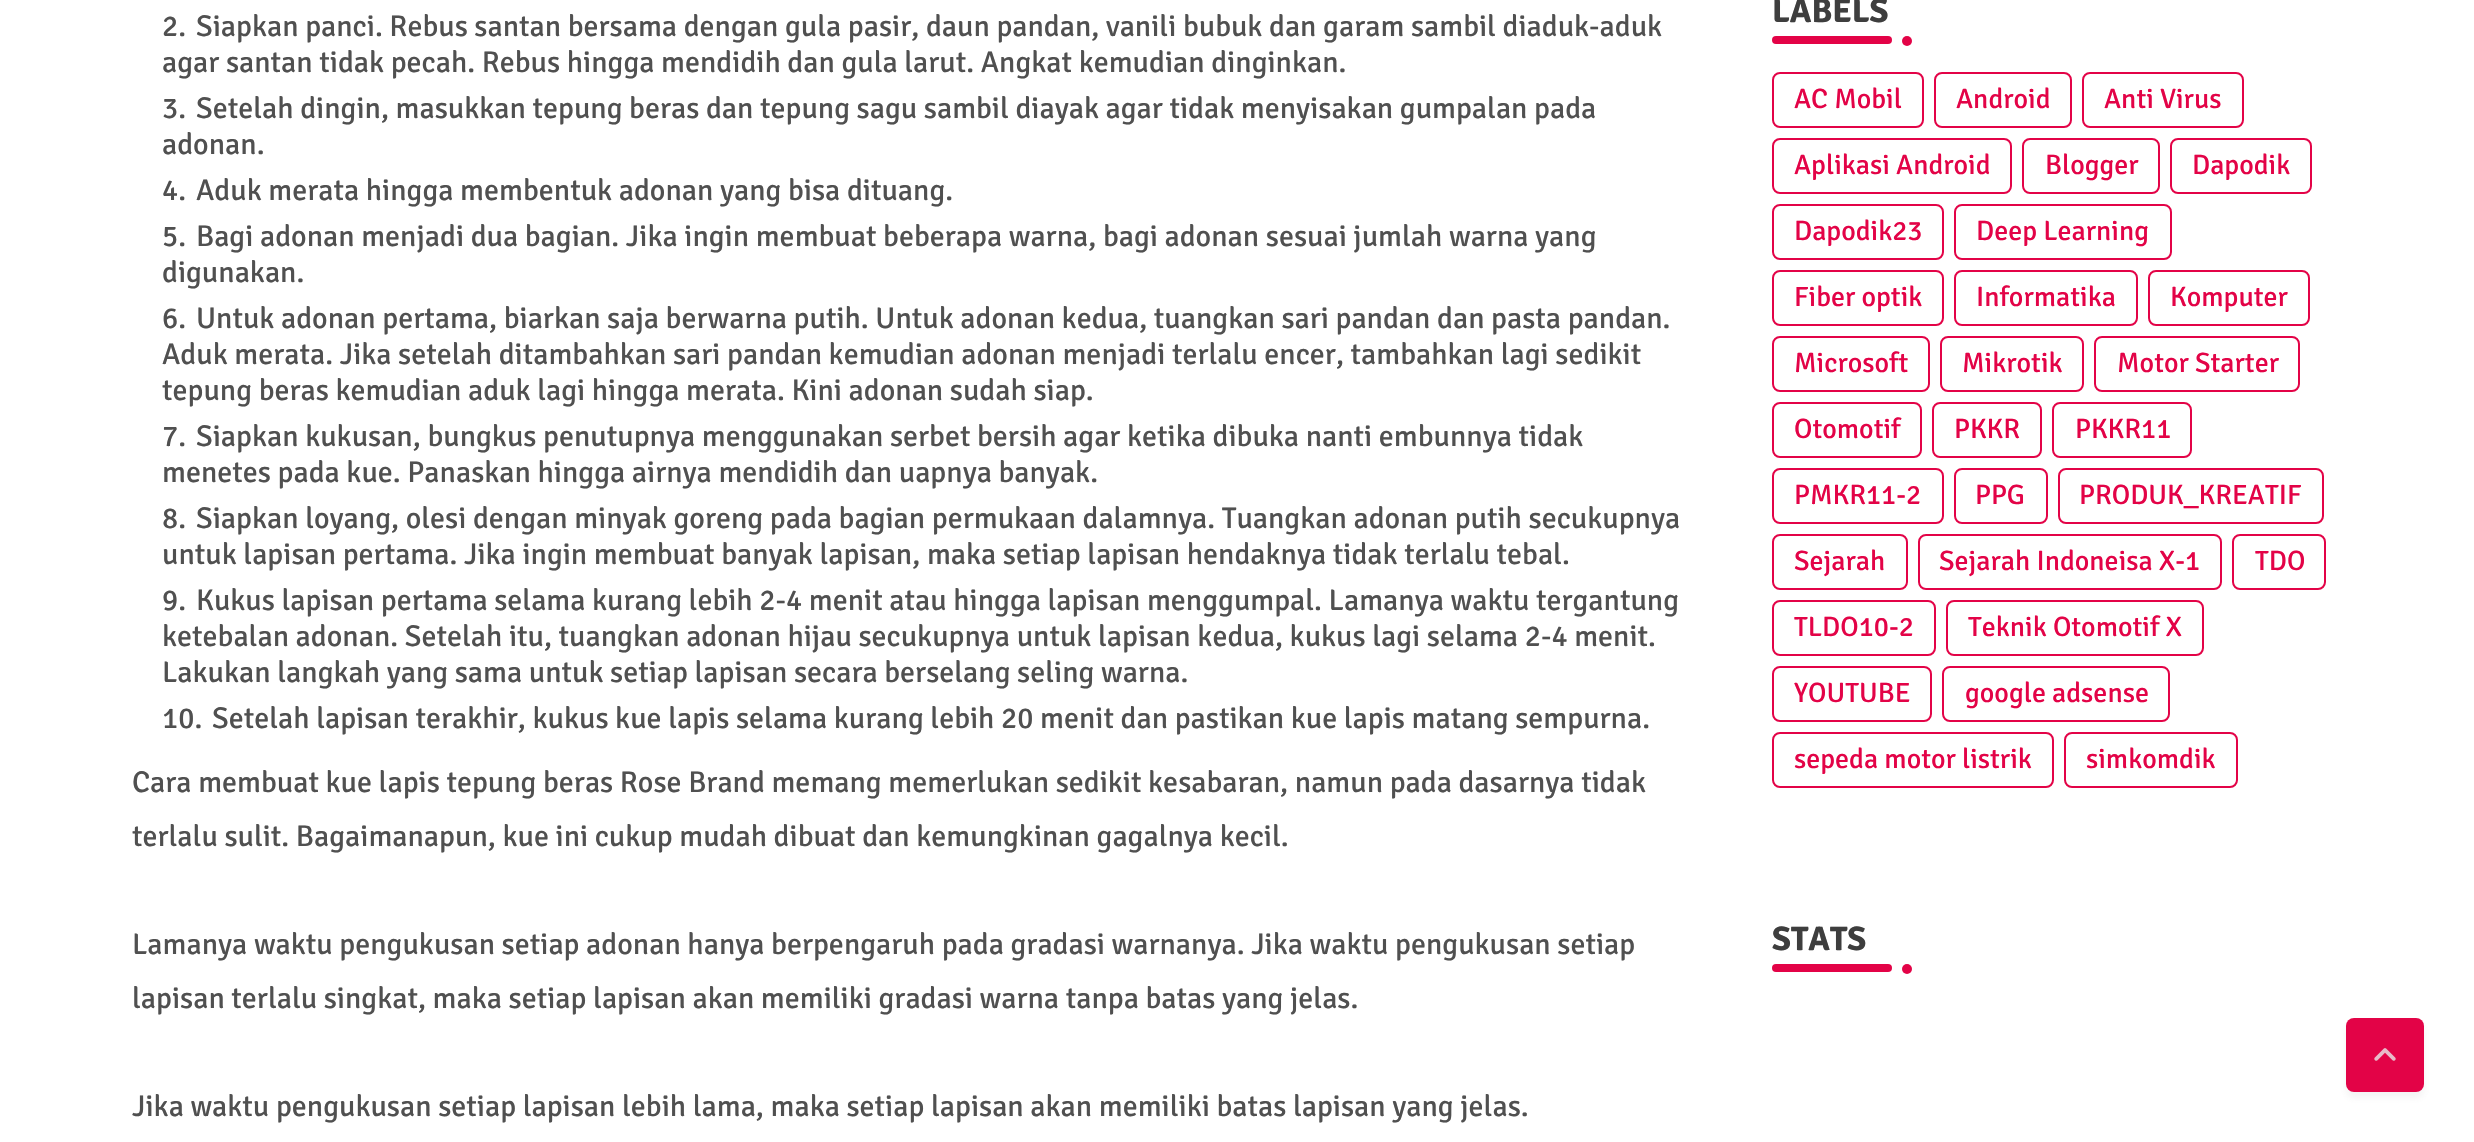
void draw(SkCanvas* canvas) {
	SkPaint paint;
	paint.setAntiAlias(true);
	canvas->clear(0xffffffff);
	SkFont f1(fontMgr->matchFamilyStyle("Signika", SkFontStyle::Normal()), 30);
	f1.setSubpixel(true);
	paint.setColor(0xff505050);
	canvas->drawString("2.", 162, 36, f1, paint);
	canvas->drawString("Siapkan panci. Rebus santan bersama dengan gula pasir, daun pandan, vanili bubuk dan garam sambil diaduk-aduk", 196, 36, f1, paint);
	canvas->drawString("agar santan tidak pecah. Rebus hingga mendidih dan gula larut. Angkat kemudian dinginkan.", 162, 72, f1, paint);
	canvas->drawString("3.", 162, 118, f1, paint);
	canvas->drawString("Setelah dingin, masukkan tepung beras dan tepung sagu sambil diayak agar tidak menyisakan gumpalan pada", 196, 118, f1, paint);
	canvas->drawString("adonan.", 162, 154, f1, paint);
	canvas->drawString("4.", 162, 200, f1, paint);
	canvas->drawString("Aduk merata hingga membentuk adonan yang bisa dituang.", 196, 200, f1, paint);
	canvas->drawString("5.", 162, 246, f1, paint);
	canvas->drawString("Bagi adonan menjadi dua bagian. Jika ingin membuat beberapa warna, bagi adonan sesuai jumlah warna yang", 196, 246, f1, paint);
	canvas->drawString("digunakan.", 162, 282, f1, paint);
	canvas->drawString("6.", 162, 328, f1, paint);
	canvas->drawString("Untuk adonan pertama, biarkan saja berwarna putih. Untuk adonan kedua, tuangkan sari pandan dan pasta pandan.", 196, 328, f1, paint);
	canvas->drawString("Aduk merata. Jika setelah ditambahkan sari pandan kemudian adonan menjadi terlalu encer, tambahkan lagi sedikit", 162, 364, f1, paint);
	canvas->drawString("tepung beras kemudian aduk lagi hingga merata. Kini adonan sudah siap.", 162, 400, f1, paint);
	canvas->drawString("7.", 162, 446, f1, paint);
	canvas->drawString("Siapkan kukusan, bungkus penutupnya menggunakan serbet bersih agar ketika dibuka nanti embunnya tidak", 196, 446, f1, paint);
	canvas->drawString("menetes pada kue. Panaskan hingga airnya mendidih dan uapnya banyak.", 162, 482, f1, paint);
	canvas->drawString("8.", 162, 528, f1, paint);
	canvas->drawString("Siapkan loyang, olesi dengan minyak goreng pada bagian permukaan dalamnya. Tuangkan adonan putih secukupnya", 196, 528, f1, paint);
	canvas->drawString("untuk lapisan pertama. Jika ingin membuat banyak lapisan, maka setiap lapisan hendaknya tidak terlalu tebal.", 162, 564, f1, paint);
	canvas->drawString("9.", 162, 610, f1, paint);
	canvas->drawString("Kukus lapisan pertama selama kurang lebih 2-4 menit atau hingga lapisan menggumpal. Lamanya waktu tergantung", 196, 610, f1, paint);
	canvas->drawString("ketebalan adonan. Setelah itu, tuangkan adonan hijau secukupnya untuk lapisan kedua, kukus lagi selama 2-4 menit.", 162, 646, f1, paint);
	canvas->drawString("Lakukan langkah yang sama untuk setiap lapisan secara berselang seling warna.", 162, 682, f1, paint);
	canvas->drawString("10.", 162, 728, f1, paint);
	canvas->drawString("Setelah lapisan terakhir, kukus kue lapis selama kurang lebih 20 menit dan pastikan kue lapis matang sempurna.", 212, 728, f1, paint);
	canvas->drawString("Cara membuat kue lapis tepung beras Rose Brand memang memerlukan sedikit kesabaran, namun pada dasarnya tidak", 132, 792, f1, paint);
	canvas->drawString("terlalu sulit. Bagaimanapun, kue ini cukup mudah dibuat dan kemungkinan gagalnya kecil.", 132, 846, f1, paint);
	canvas->drawString("Lamanya waktu pengukusan setiap adonan hanya berpengaruh pada gradasi warnanya. Jika waktu pengukusan setiap", 132, 954, f1, paint);
	canvas->drawString("lapisan terlalu singkat, maka setiap lapisan akan memiliki gradasi warna tanpa batas yang jelas.", 132, 1008, f1, paint);
	canvas->drawString("Jika waktu pengukusan setiap lapisan lebih lama, maka setiap lapisan akan memiliki batas lapisan yang jelas.", 132, 1116, f1, paint);
	SkFont f2(fontMgr->matchFamilyStyle("Signika", SkFontStyle::Bold()), 34);
	f2.setSubpixel(true);
	paint.setColor(0xff3e3e3e);
	canvas->drawString("LABELS", 1772, 22, f2, paint);
	paint.setColor(0xffe30347);
	canvas->drawRoundRect(SkRect::MakeXYWH(1772, 36, 120, 8), 4, 4, paint);
	canvas->drawCircle(1907, 41, 5, paint);
	paint.setStroke(true);
	paint.setStrokeWidth(2);
	canvas->drawRoundRect(SkRect::MakeXYWH(1773, 73, 150, 54), 7, 7, paint);
	SkFont f3(fontMgr->matchFamilyStyle("Signika", SkFontStyle::Normal()), 28);
	f3.setSubpixel(true);
	paint.setStroke(false);
	canvas->drawString("AC Mobil", 1794, 108, f3, paint);
	paint.setStroke(true);
	canvas->drawRoundRect(SkRect::MakeXYWH(1935, 73, 136, 54), 7, 7, paint);
	paint.setStroke(false);
	canvas->drawString("Android", 1956, 108, f3, paint);
	paint.setStroke(true);
	canvas->drawRoundRect(SkRect::MakeXYWH(2083, 73, 160, 54), 7, 7, paint);
	paint.setStroke(false);
	canvas->drawString("Anti Virus", 2104, 108, f3, paint);
	paint.setStroke(true);
	canvas->drawRoundRect(SkRect::MakeXYWH(1773, 139, 238, 54), 7, 7, paint);
	paint.setStroke(false);
	canvas->drawString("Aplikasi Android", 1794, 174, f3, paint);
	paint.setStroke(true);
	canvas->drawRoundRect(SkRect::MakeXYWH(2023, 139, 136, 54), 7, 7, paint);
	paint.setStroke(false);
	canvas->drawString("Blogger", 2045, 174, f3, paint);
	paint.setStroke(true);
	canvas->drawRoundRect(SkRect::MakeXYWH(2171, 139, 140, 54), 7, 7, paint);
	paint.setStroke(false);
	canvas->drawString("Dapodik", 2192, 174, f3, paint);
	paint.setStroke(true);
	canvas->drawRoundRect(SkRect::MakeXYWH(1773, 205, 170, 54), 7, 7, paint);
	paint.setStroke(false);
	canvas->drawString("Dapodik23", 1794, 240, f3, paint);
	paint.setStroke(true);
	canvas->drawRoundRect(SkRect::MakeXYWH(1955, 205, 216, 54), 7, 7, paint);
	paint.setStroke(false);
	canvas->drawString("Deep Learning", 1976, 240, f3, paint);
	paint.setStroke(true);
	canvas->drawRoundRect(SkRect::MakeXYWH(1773, 271, 170, 54), 7, 7, paint);
	paint.setStroke(false);
	canvas->drawString("Fiber optik", 1794, 306, f3, paint);
	paint.setStroke(true);
	canvas->drawRoundRect(SkRect::MakeXYWH(1955, 271, 182, 54), 7, 7, paint);
	paint.setStroke(false);
	canvas->drawString("Informatika", 1976, 306, f3, paint);
	paint.setStroke(true);
	canvas->drawRoundRect(SkRect::MakeXYWH(2149, 271, 160, 54), 7, 7, paint);
	paint.setStroke(false);
	canvas->drawString("Komputer", 2170, 306, f3, paint);
	paint.setStroke(true);
	canvas->drawRoundRect(SkRect::MakeXYWH(1773, 337, 156, 54), 7, 7, paint);
	paint.setStroke(false);
	canvas->drawString("Microsoft", 1794, 372, f3, paint);
	paint.setStroke(true);
	canvas->drawRoundRect(SkRect::MakeXYWH(1941, 337, 142, 54), 7, 7, paint);
	paint.setStroke(false);
	canvas->drawString("Mikrotik", 1962, 372, f3, paint);
	paint.setStroke(true);
	canvas->drawRoundRect(SkRect::MakeXYWH(2095, 337, 204, 54), 7, 7, paint);
	paint.setStroke(false);
	canvas->drawString("Motor Starter", 2117, 372, f3, paint);
	paint.setStroke(true);
	canvas->drawRoundRect(SkRect::MakeXYWH(1773, 403, 148, 54), 7, 7, paint);
	paint.setStroke(false);
	canvas->drawString("Otomotif", 1794, 438, f3, paint);
	paint.setStroke(true);
	canvas->drawRoundRect(SkRect::MakeXYWH(1933, 403, 108, 54), 7, 7, paint);
	paint.setStroke(false);
	canvas->drawString("PKKR", 1954, 438, f3, paint);
	paint.setStroke(true);
	canvas->drawRoundRect(SkRect::MakeXYWH(2053, 403, 138, 54), 7, 7, paint);
	paint.setStroke(false);
	canvas->drawString("PKKR11", 2075, 438, f3, paint);
	paint.setStroke(true);
	canvas->drawRoundRect(SkRect::MakeXYWH(1773, 469, 170, 54), 7, 7, paint);
	paint.setStroke(false);
	canvas->drawString("PMKR11-2", 1794, 504, f3, paint);
	paint.setStroke(true);
	canvas->drawRoundRect(SkRect::MakeXYWH(1955, 469, 92, 54), 7, 7, paint);
	paint.setStroke(false);
	canvas->drawString("PPG", 1975, 504, f3, paint);
	paint.setStroke(true);
	canvas->drawRoundRect(SkRect::MakeXYWH(2059, 469, 264, 54), 7, 7, paint);
	paint.setStroke(false);
	canvas->drawString("PRODUK_KREATIF", 2079, 504, f3, paint);
	paint.setStroke(true);
	canvas->drawRoundRect(SkRect::MakeXYWH(1773, 535, 134, 54), 7, 7, paint);
	paint.setStroke(false);
	canvas->drawString("Sejarah", 1794, 570, f3, paint);
	paint.setStroke(true);
	canvas->drawRoundRect(SkRect::MakeXYWH(1919, 535, 302, 54), 7, 7, paint);
	paint.setStroke(false);
	canvas->drawString("Sejarah Indoneisa X-1", 1939, 570, f3, paint);
	paint.setStroke(true);
	canvas->drawRoundRect(SkRect::MakeXYWH(2233, 535, 92, 54), 7, 7, paint);
	paint.setStroke(false);
	canvas->drawString("TDO", 2255, 570, f3, paint);
	paint.setStroke(true);
	canvas->drawRoundRect(SkRect::MakeXYWH(1773, 601, 162, 54), 7, 7, paint);
	paint.setStroke(false);
	canvas->drawString("TLDO10-2", 1794, 636, f3, paint);
	paint.setStroke(true);
	canvas->drawRoundRect(SkRect::MakeXYWH(1947, 601, 256, 54), 7, 7, paint);
	paint.setStroke(false);
	canvas->drawString("Teknik Otomotif X", 1968, 636, f3, paint);
	paint.setStroke(true);
	canvas->drawRoundRect(SkRect::MakeXYWH(1773, 667, 158, 54), 7, 7, paint);
	paint.setStroke(false);
	canvas->drawString("YOUTUBE", 1794, 702, f3, paint);
	paint.setStroke(true);
	canvas->drawRoundRect(SkRect::MakeXYWH(1943, 667, 226, 54), 7, 7, paint);
	paint.setStroke(false);
	canvas->drawString("google adsense", 1965, 702, f3, paint);
	paint.setStroke(true);
	canvas->drawRoundRect(SkRect::MakeXYWH(1773, 733, 280, 54), 7, 7, paint);
	paint.setStroke(false);
	canvas->drawString("sepeda motor listrik", 1794, 768, f3, paint);
	paint.setStroke(true);
	canvas->drawRoundRect(SkRect::MakeXYWH(2065, 733, 172, 54), 7, 7, paint);
	paint.setStroke(false);
	canvas->drawString("simkomdik", 2086, 768, f3, paint);
	paint.setColor(0xff3e3e3e);
	canvas->drawString("STATS", 1772, 950, f2, paint);
	paint.setColor(0xffe30347);
	canvas->drawRoundRect(SkRect::MakeXYWH(1772, 964, 120, 8), 4, 4, paint);
	canvas->drawCircle(1907, 969, 5, paint);
	paint.setColor(0x14787878);
	paint.setMaskFilter(SkMaskFilter::MakeBlur(kNormal_SkBlurStyle, 3));
	canvas->drawRoundRect(SkRect::MakeXYWH(2346, 1024, 78, 74), 8, 8, paint);
	paint.setMaskFilter(nullptr);
	paint.setColor(0xffe30347);
	canvas->drawRoundRect(SkRect::MakeXYWH(2346, 1018, 78, 74), 8, 8, paint);
	canvas->drawImageRect(SkImages::DeferredFromEncodedData(SkData::MakeFromFileName("img1.png")), SkRect::MakeXYWH(2374, 1048, 22, 13), SkSamplingOptions());
}
